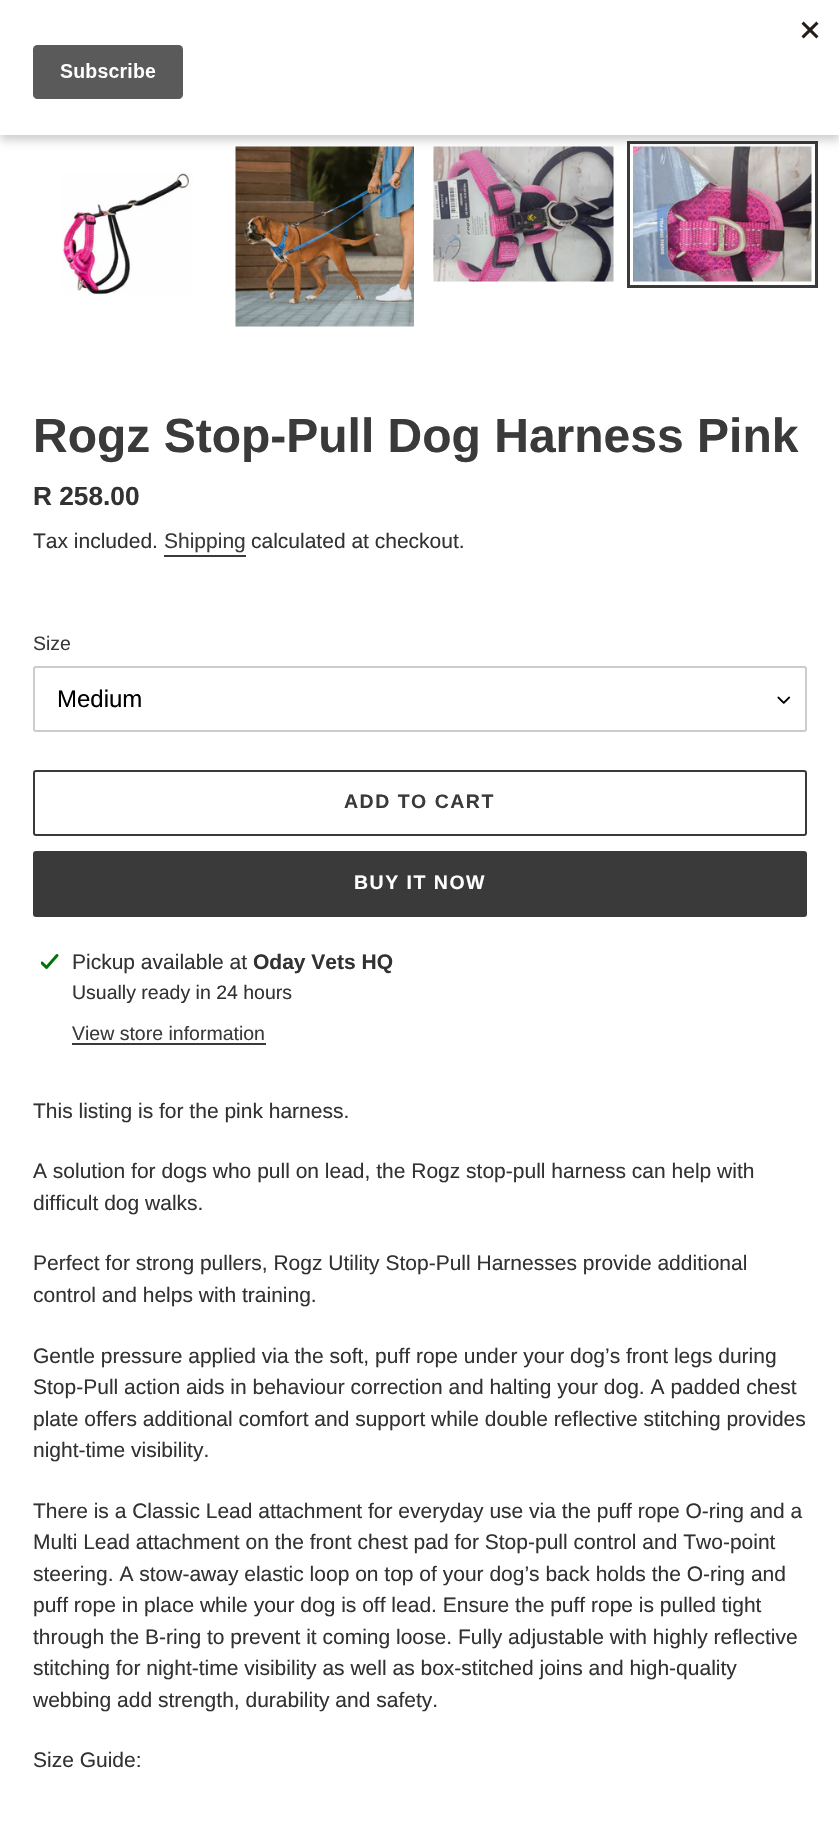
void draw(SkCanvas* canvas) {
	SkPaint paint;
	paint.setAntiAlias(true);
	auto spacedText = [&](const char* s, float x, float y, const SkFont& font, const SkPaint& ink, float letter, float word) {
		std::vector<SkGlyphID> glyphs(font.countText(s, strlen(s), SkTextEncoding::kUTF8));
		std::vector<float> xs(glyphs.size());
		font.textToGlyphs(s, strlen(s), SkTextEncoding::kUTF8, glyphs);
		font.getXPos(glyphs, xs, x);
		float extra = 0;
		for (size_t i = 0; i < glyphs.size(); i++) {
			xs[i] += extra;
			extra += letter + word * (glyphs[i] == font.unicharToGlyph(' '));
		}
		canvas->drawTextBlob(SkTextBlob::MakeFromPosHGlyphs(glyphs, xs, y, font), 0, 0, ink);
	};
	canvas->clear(0xffffffff);
	canvas->drawImageRect(SkImages::DeferredFromEncodedData(SkData::MakeFromFileName("img3.png")), SkRect::MakeXYWH(235, 146, 179, 181), SkSamplingOptions());
	canvas->drawImageRect(SkImages::DeferredFromEncodedData(SkData::MakeFromFileName("img4.png")), SkRect::MakeXYWH(433, 146, 181, 136), SkSamplingOptions());
	paint.setStroke(true);
	paint.setStrokeWidth(3);
	paint.setColor(0xff3a3a3a);
	canvas->drawRect(SkRect::MakeXYWH(628.5, 142.5, 188, 144), paint);
	canvas->drawImageRect(SkImages::DeferredFromEncodedData(SkData::MakeFromFileName("img5.png")), SkRect::MakeXYWH(633, 146, 179, 136), SkSamplingOptions());
	paint.setStroke(false);
	paint.setColor(0x33000000);
	paint.setMaskFilter(SkMaskFilter::MakeBlur(kNormal_SkBlurStyle, 4.5));
	canvas->drawRect(SkRect::MakeXYWH(0, 5, 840, 135), paint);
	paint.setMaskFilter(nullptr);
	paint.setColor(0xffffffff);
	canvas->drawRect(SkRect::MakeXYWH(0, 0, 839, 135), paint);
	canvas->drawImageRect(SkImages::DeferredFromEncodedData(SkData::MakeFromFileName("img1.png")), SkRect::MakeXYWH(32, 21, 787, 78), SkSamplingOptions());
	canvas->drawImageRect(SkImages::DeferredFromEncodedData(SkData::MakeFromFileName("img2.png")), SkRect::MakeXYWH(62, 173, 131, 122), SkSamplingOptions());
	SkFont f1(fontMgr->matchFamilyStyle("Liberation Sans", SkFontStyle::Bold()), 48);
	f1.setSubpixel(true);
	paint.setColor(0xff3a3a3a);
	canvas->drawString("Rogz Stop-Pull Dog Harness Pink", 33, 452, f1, paint);
	SkFont f2(fontMgr->matchFamilyStyle("Liberation Sans", SkFontStyle::Bold()), 26.25);
	f2.setSubpixel(true);
	paint.setColor(0xff333232);
	canvas->drawString("R 258.00", 33, 505, f2, paint);
	SkFont f3(fontMgr->matchFamilyStyle("Liberation Sans", SkFontStyle::Normal()), 21);
	f3.setSubpixel(true);
	canvas->drawString("Tax included.", 33, 548, f3, paint);
	paint.setColor(0xff3a3a3a);
	canvas->drawString("Shipping", 164, 548, f3, paint);
	canvas->drawRect(SkRect::MakeXYWH(164, 555, 82, 2), paint);
	paint.setColor(0xff333232);
	canvas->drawString("calculated at checkout.", 251, 548, f3, paint);
	SkFont f4(fontMgr->matchFamilyStyle("Liberation Sans", SkFontStyle::Normal()), 19.5);
	f4.setSubpixel(true);
	paint.setColor(0xff3a3a3a);
	canvas->drawString("Size", 33, 650, f4, paint);
	canvas->drawImageRect(SkImages::DeferredFromEncodedData(SkData::MakeFromFileName("img6.png")), SkRect::MakeXYWH(777, 696, 14, 8), SkSamplingOptions());
	paint.setStroke(true);
	paint.setStrokeWidth(2);
	paint.setColor(0xffcccccc);
	canvas->drawRoundRect(SkRect::MakeXYWH(34, 667, 772, 64), 2, 2, paint);
	SkFont f5(fontMgr->matchFamilyStyle("Liberation Sans", SkFontStyle::Normal()), 24);
	f5.setSubpixel(true);
	paint.setStroke(false);
	paint.setColor(0xff000000);
	canvas->drawString("Medium", 57, 707, f5, paint);
	paint.setStroke(true);
	paint.setColor(0xff3a3a3a);
	canvas->drawRoundRect(SkRect::MakeXYWH(34, 771, 772, 64), 2, 2, paint);
	SkFont f6(fontMgr->matchFamilyStyle("Liberation Sans", SkFontStyle::Bold()), 19.5);
	f6.setSubpixel(true);
	paint.setStroke(false);
	spacedText("ADD TO CART", 344, 808, f6, paint, 1.5, 0);
	canvas->drawRoundRect(SkRect::MakeXYWH(33, 851, 774, 66), 3, 3, paint);
	paint.setColor(0xffffffff);
	spacedText("BUY IT NOW", 354, 889, f6, paint, 1.5, 0);
	canvas->drawImageRect(SkImages::DeferredFromEncodedData(SkData::MakeFromFileName("img7.png")), SkRect::MakeXYWH(41, 954, 18, 15), SkSamplingOptions());
	paint.setColor(0xff333232);
	canvas->drawString("Pickup available at", 72, 969, f3, paint);
	SkFont f7(fontMgr->matchFamilyStyle("Liberation Sans", SkFontStyle::Bold()), 21);
	f7.setSubpixel(true);
	canvas->drawString("Oday Vets HQ", 253, 969, f7, paint);
	canvas->drawString("Usually ready in 24 hours", 72, 999, f4, paint);
	paint.setColor(0xff3a3a3a);
	canvas->drawString("View store information", 72, 1040, f4, paint);
	canvas->drawRect(SkRect::MakeXYWH(72, 1043, 194, 2), paint);
	paint.setColor(0xff333232);
	canvas->drawString("This listing is for the pink harness.", 33, 1118, f3, paint);
	canvas->drawString("A solution for dogs who pull on lead, the Rogz stop-pull harness can help with", 33, 1178, f3, paint);
	canvas->drawString("difficult dog walks.", 33, 1210, f3, paint);
	canvas->drawString("Perfect for strong pullers, Rogz Utility Stop-Pull Harnesses provide additional", 33, 1270, f3, paint);
	canvas->drawString("control and helps with training.", 33, 1302, f3, paint);
	canvas->drawString("Gentle pressure applied via the soft, puff rope under your dog’s front legs during", 33, 1363, f3, paint);
	canvas->drawString("Stop-Pull action aids in behaviour correction and halting your dog. A padded chest", 33, 1394, f3, paint);
	canvas->drawString("plate offers additional comfort and support while double reflective stitching provides", 33, 1426, f3, paint);
	canvas->drawString("night-time visibility.", 33, 1457, f3, paint);
	canvas->drawString("There is a Classic Lead attachment for everyday use via the puff rope O-ring and a", 33, 1518, f3, paint);
	canvas->drawString("Multi Lead attachment on the front chest pad for Stop-pull control and Two-point", 33, 1549, f3, paint);
	canvas->drawString("steering. A stow-away elastic loop on top of your dog’s back holds the O-ring and", 33, 1581, f3, paint);
	canvas->drawString("puff rope in place while your dog is off lead. Ensure the puff rope is pulled tight", 33, 1612, f3, paint);
	canvas->drawString("through the B-ring to prevent it coming loose. Fully adjustable with highly reflective", 33, 1644, f3, paint);
	canvas->drawString("stitching for night-time visibility as well as box-stitched joins and high-quality", 33, 1675, f3, paint);
	canvas->drawString("webbing add strength, durability and safety.", 33, 1707, f3, paint);
	canvas->drawString("Size Guide:", 33, 1767, f3, paint);
}
